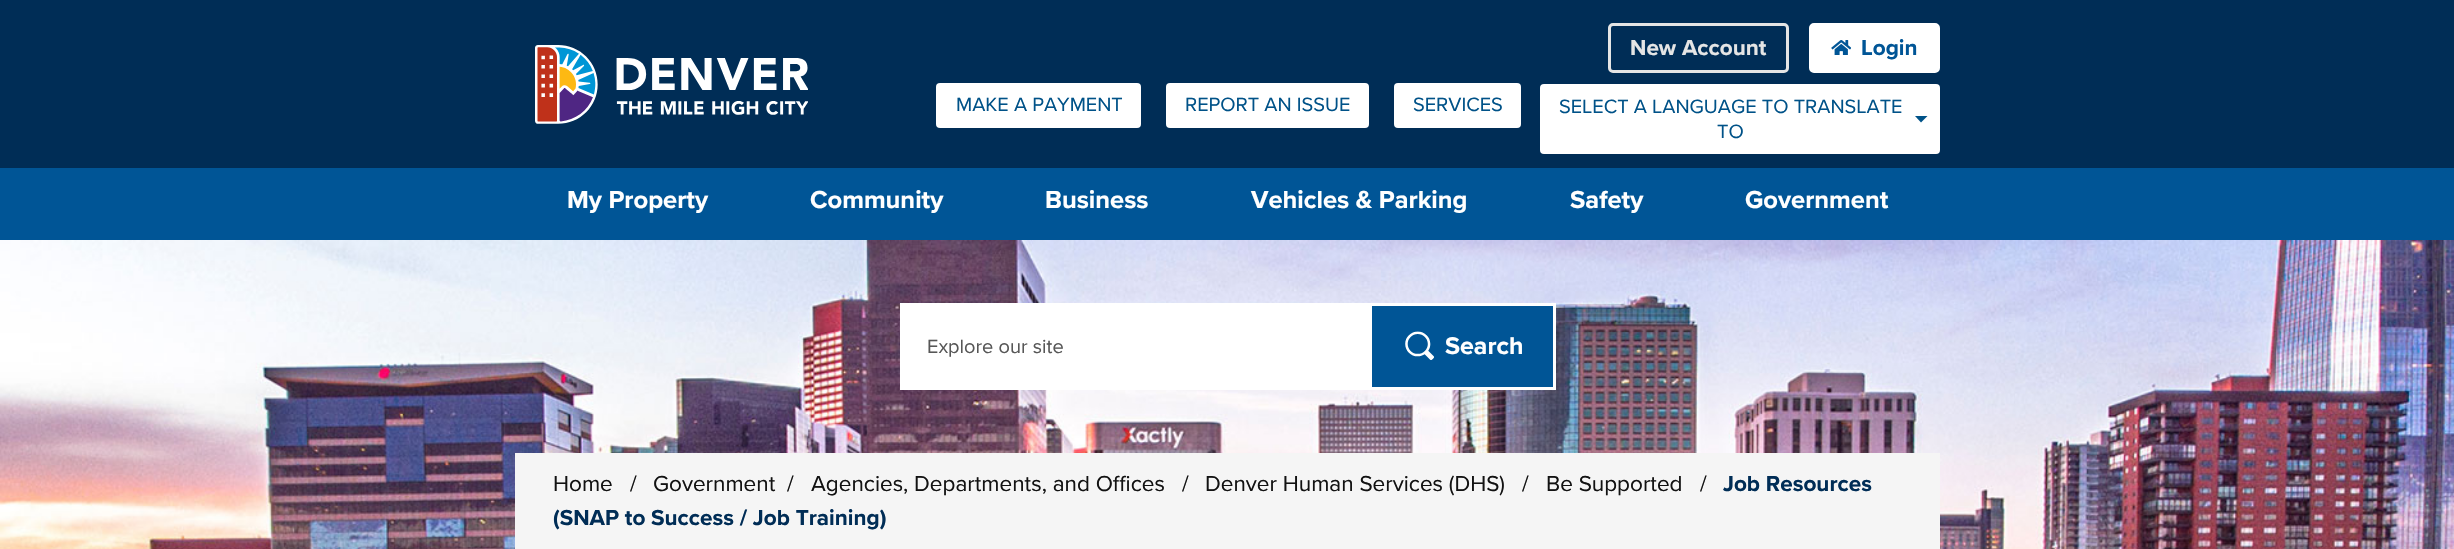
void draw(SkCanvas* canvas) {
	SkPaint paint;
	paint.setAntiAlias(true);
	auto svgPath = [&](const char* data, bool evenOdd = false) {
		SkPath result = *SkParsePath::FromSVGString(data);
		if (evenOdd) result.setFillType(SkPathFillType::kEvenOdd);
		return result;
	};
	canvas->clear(0xff002d56);
	paint.setStroke(true);
	paint.setStrokeWidth(3);
	paint.setColor(0xffe5e5e5);
	canvas->drawRoundRect(SkRect::MakeXYWH(1609.5, 24.5, 178, 47), 3.5, 3.5, paint);
	SkFont f1(fontMgr->matchFamilyStyle("Proxima Nova", SkFontStyle::Bold()), 22.5);
	f1.setSubpixel(true);
	paint.setStroke(false);
	canvas->drawString("New Account", 1630, 55, f1, paint);
	paint.setColor(0xffffffff);
	canvas->drawRoundRect(SkRect::MakeXYWH(1810.5, 24.5, 128, 47), 3.5, 3.5, paint);
	paint.setStroke(true);
	canvas->drawRoundRect(SkRect::MakeXYWH(1810.5, 24.5, 128, 47), 3.5, 3.5, paint);
	canvas->drawImageRect(SkImages::DeferredFromEncodedData(SkData::MakeFromFileName("img1.png")), SkRect::MakeXYWH(1831, 40, 20, 15), SkSamplingOptions());
	paint.setStroke(false);
	paint.setColor(0xff005596);
	canvas->drawString("Login", 1861, 55, f1, paint);
	paint.setColor(0xffffffff);
	canvas->drawRoundRect(SkRect::MakeXYWH(936, 83, 205, 45), 4, 4, paint);
	SkFont f2(fontMgr->matchFamilyStyle("Proxima Nova", SkFontStyle::Normal()), 20);
	f2.setSubpixel(true);
	paint.setColor(0xff005288);
	canvas->drawString("MAKE A PAYMENT", 956, 111, f2, paint);
	paint.setColor(0xffffffff);
	canvas->drawRoundRect(SkRect::MakeXYWH(1166, 83, 203, 45), 4, 4, paint);
	paint.setColor(0xff005288);
	canvas->drawString("REPORT AN ISSUE", 1185, 111, f2, paint);
	paint.setColor(0xffffffff);
	canvas->drawRoundRect(SkRect::MakeXYWH(1394, 83, 127, 45), 4, 4, paint);
	paint.setColor(0xff005288);
	canvas->drawString("SERVICES", 1413, 111, f2, paint);
	paint.setColor(0xffffffff);
	canvas->drawRoundRect(SkRect::MakeXYWH(1540, 84, 400, 70), 4, 4, paint);
	paint.setColor(0xff005288);
	canvas->drawString("SELECT A LANGUAGE TO TRANSLATE", 1559, 113, f2, paint);
	canvas->drawPath(svgPath("M1915 116H1927.5L1921 122.5Z"), paint);
	canvas->drawString("TO", 1717, 138, f2, paint);
	canvas->drawImageRect(SkImages::DeferredFromEncodedData(SkData::MakeFromFileName("img2.png")), SkRect::MakeXYWH(535, 45, 273, 79), SkSamplingOptions());
	paint.setColor(0xff005596);
	canvas->drawRect(SkRect::MakeXYWH(0, 168, 2454, 72), paint);
	SkFont f3(fontMgr->matchFamilyStyle("Proxima Nova", SkFontStyle::Bold()), 25.5);
	f3.setSubpixel(true);
	paint.setColor(0xffffffff);
	canvas->drawString("My Property", 567, 208, f3, paint);
	canvas->drawString("Community", 810, 208, f3, paint);
	canvas->drawString("Business", 1045, 208, f3, paint);
	canvas->drawString("Vehicles & Parking", 1251, 208, f3, paint);
	canvas->drawString("Safety", 1570, 208, f3, paint);
	canvas->drawString("Government", 1745, 208, f3, paint);
	canvas->drawImageRect(SkImages::DeferredFromEncodedData(SkData::MakeFromFileName("img4.png")), SkRect::MakeXYWH(0, 240, 2454, 309), SkSamplingOptions());
	canvas->drawRect(SkRect::MakeXYWH(900, 303, 469, 87), paint);
	paint.setColor(0xff575757);
	canvas->drawString("Explore our site", 927, 353, f2, paint);
	paint.setColor(0xff005596);
	canvas->drawRect(SkRect::MakeXYWH(1372, 306, 181, 81), paint);
	canvas->drawImageRect(SkImages::DeferredFromEncodedData(SkData::MakeFromFileName("img3.png")), SkRect::MakeXYWH(1405, 331, 29, 29), SkSamplingOptions());
	paint.setStroke(true);
	paint.setColor(0xffffffff);
	canvas->drawRect(SkRect::MakeXYWH(1370.5, 304.5, 184, 84), paint);
	SkFont f4(fontMgr->matchFamilyStyle("Proxima Nova", SkFontStyle::Bold()), 25);
	f4.setSubpixel(true);
	paint.setStroke(false);
	canvas->drawString("Search", 1445, 354, f4, paint);
	paint.setColor(0xfff5f5f5);
	canvas->drawRect(SkRect::MakeXYWH(515, 453, 1425, 96), paint);
	SkFont f5(fontMgr->matchFamilyStyle("Proxima Nova", SkFontStyle::Normal()), 22.5);
	f5.setSubpixel(true);
	paint.setColor(0xff121212);
	canvas->drawString("Home", 553, 491, f5, paint);
	canvas->drawString("/", 630, 491, f5, paint);
	canvas->drawString("Government", 653, 491, f5, paint);
	canvas->drawString("/", 787, 491, f5, paint);
	canvas->drawString("Agencies, Departments, and Offices", 811, 491, f5, paint);
	canvas->drawString("/", 1182, 491, f5, paint);
	canvas->drawString("Denver Human Services (DHS)", 1205, 491, f5, paint);
	canvas->drawString("/", 1522, 491, f5, paint);
	canvas->drawString("Be Supported", 1546, 491, f5, paint);
	canvas->drawString("/", 1700, 491, f5, paint);
	paint.setColor(0xff002d56);
	canvas->drawString("Job Resources", 1723, 491, f1, paint);
	canvas->drawString("(SNAP to Success / Job Training)", 553, 525, f1, paint);
}
